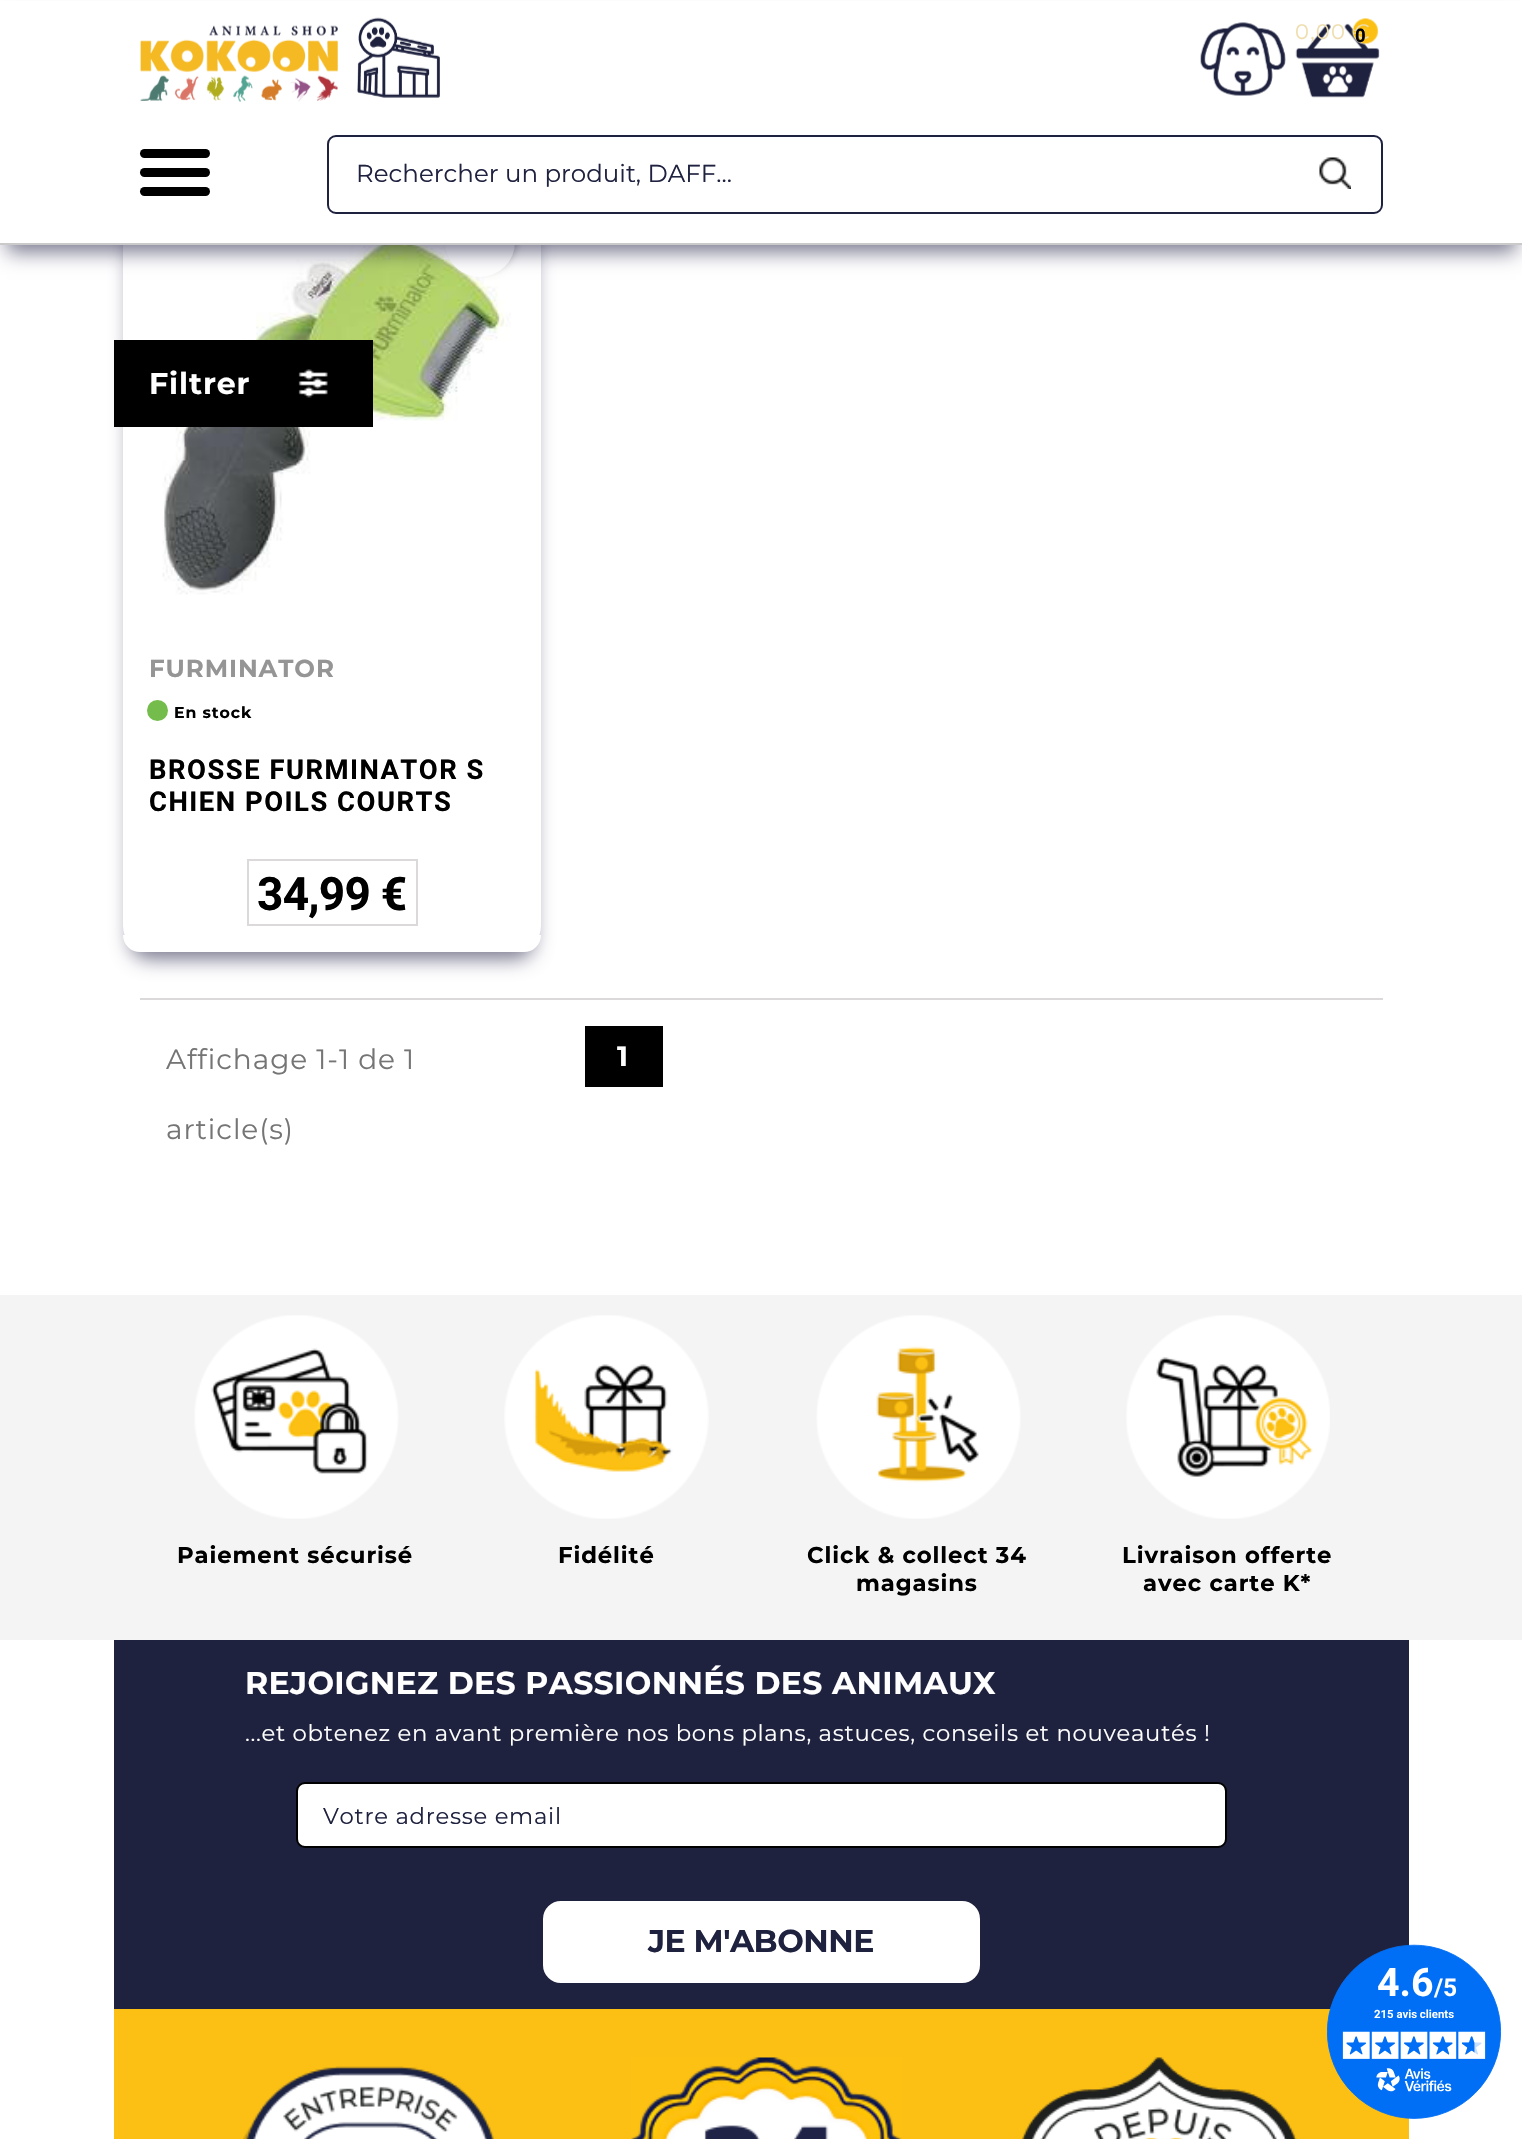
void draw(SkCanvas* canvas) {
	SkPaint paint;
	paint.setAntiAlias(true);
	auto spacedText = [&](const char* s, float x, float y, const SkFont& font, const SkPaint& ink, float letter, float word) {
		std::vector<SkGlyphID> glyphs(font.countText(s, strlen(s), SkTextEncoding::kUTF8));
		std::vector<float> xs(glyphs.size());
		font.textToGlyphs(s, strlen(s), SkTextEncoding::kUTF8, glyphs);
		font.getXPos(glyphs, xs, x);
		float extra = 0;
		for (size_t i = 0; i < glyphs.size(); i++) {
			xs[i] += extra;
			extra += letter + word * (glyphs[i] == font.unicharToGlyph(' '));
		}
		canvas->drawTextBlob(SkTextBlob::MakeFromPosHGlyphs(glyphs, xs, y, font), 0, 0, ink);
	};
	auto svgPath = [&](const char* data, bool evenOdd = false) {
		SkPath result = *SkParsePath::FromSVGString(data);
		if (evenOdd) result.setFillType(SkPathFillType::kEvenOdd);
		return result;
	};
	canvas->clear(0xffffffff);
	paint.setColor(0x87000029);
	paint.setMaskFilter(SkMaskFilter::MakeBlur(kNormal_SkBlurStyle, 9.5));
	canvas->drawRoundRect(SkRect::MakeXYWH(130, 222, 404, 737), 19, 19, paint);
	paint.setMaskFilter(nullptr);
	paint.setColor(0xffffffff);
	canvas->drawRoundRect(SkRect::MakeXYWH(123, 201, 418, 751), 26, 26, paint);
	canvas->drawImageRect(SkImages::DeferredFromEncodedData(SkData::MakeFromFileName("img7.png")), SkRect::MakeXYWH(162, 245, 349, 350), SkSamplingOptions());
	paint.setColor(0x33000000);
	paint.setMaskFilter(SkMaskFilter::MakeBlur(kNormal_SkBlurStyle, 3.5));
	canvas->drawRoundRect(SkRect::MakeXYWH(448, 203, 70, 70), 35, 35, paint);
	paint.setMaskFilter(nullptr);
	paint.setColor(0xffffffff);
	canvas->drawCircle(480, 242, 35, paint);
	paint.setColor(0x87000029);
	paint.setMaskFilter(SkMaskFilter::MakeBlur(kNormal_SkBlurStyle, 9.5));
	canvas->drawRect(SkRect::MakeXYWH(7, 21, 1509, 231), paint);
	paint.setMaskFilter(nullptr);
	paint.setColor(0xffffffff);
	canvas->drawRect(SkRect::MakeXYWH(0, 1, 1522, 242), paint);
	paint.setColor(0xffcacaca);
	canvas->drawRect(SkRect::MakeXYWH(0, 243, 1522, 2), paint);
	paint.setColor(0xff000000);
	canvas->drawRoundRect(SkRect::MakeXYWH(140, 149, 70, 9), 4.5, 4.5, paint);
	canvas->drawRoundRect(SkRect::MakeXYWH(140, 168, 70, 9), 4.5, 4.5, paint);
	canvas->drawRoundRect(SkRect::MakeXYWH(140, 187, 70, 9), 4.5, 4.5, paint);
	canvas->drawImageRect(SkImages::DeferredFromEncodedData(SkData::MakeFromFileName("img1.png")), SkRect::MakeXYWH(140, 25, 198, 77), SkSamplingOptions());
	canvas->drawImageRect(SkImages::DeferredFromEncodedData(SkData::MakeFromFileName("img2.png")), SkRect::MakeXYWH(357, 17, 83, 81), SkSamplingOptions());
	canvas->drawImageRect(SkImages::DeferredFromEncodedData(SkData::MakeFromFileName("img3.png")), SkRect::MakeXYWH(1200, 22, 86, 74), SkSamplingOptions());
	canvas->drawImageRect(SkImages::DeferredFromEncodedData(SkData::MakeFromFileName("img4.png")), SkRect::MakeXYWH(1295, 18, 85, 80), SkSamplingOptions());
	SkFont f1(fontMgr->matchFamilyStyle("Montserrat", SkFontStyle::Normal()), 21);
	f1.setSubpixel(true);
	paint.setColor(0xffeeddad);
	spacedText("0,00 €", 1295, 39, f1, paint, 1.25, 0);
	SkFont f2(fontMgr->matchFamilyStyle("Roboto", SkFontStyle::Bold()), 19);
	f2.setSubpixel(true);
	paint.setColor(0xff000000);
	canvas->drawString("0", 1355, 42, f2, paint);
	paint.setStroke(true);
	paint.setStrokeWidth(2);
	paint.setColor(0xff1f223f);
	canvas->drawRoundRect(SkRect::MakeXYWH(328, 136, 1054, 77), 8, 8, paint);
	canvas->drawImageRect(SkImages::DeferredFromEncodedData(SkData::MakeFromFileName("img5.png")), SkRect::MakeXYWH(1319, 157, 32, 32), SkSamplingOptions());
	SkFont f3(fontMgr->matchFamilyStyle("Montserrat", SkFontStyle::Normal()), 24.5);
	f3.setSubpixel(true);
	paint.setStroke(false);
	canvas->drawString("Rechercher un produit, DAFF...", 356, 182, f3, paint);
	paint.setColor(0xff000000);
	canvas->drawRect(SkRect::MakeXYWH(114, 340, 259, 87), paint);
	canvas->drawImageRect(SkImages::DeferredFromEncodedData(SkData::MakeFromFileName("img6.png")), SkRect::MakeXYWH(298, 369, 30, 29), SkSamplingOptions());
	SkFont f4(fontMgr->matchFamilyStyle("Montserrat", SkFontStyle::Bold()), 30);
	f4.setSubpixel(true);
	paint.setColor(0xffffffff);
	spacedText("Filtrer", 149, 394, f4, paint, 0.9, 0);
	SkFont f5(fontMgr->matchFamilyStyle("Montserrat", SkFontStyle::Bold()), 24.5);
	f5.setSubpixel(true);
	paint.setColor(0xff959595);
	spacedText("FURMINATOR", 149, 677, f5, paint, 0.9, 0);
	paint.setColor(0xff74bc4c);
	canvas->drawCircle(157.5, 710.5, 10.5, paint);
	SkFont f6(fontMgr->matchFamilyStyle("Montserrat", SkFontStyle::Bold()), 15.75);
	f6.setSubpixel(true);
	paint.setColor(0xff000000);
	spacedText("En stock", 174, 718, f6, paint, 0.9, 0);
	SkFont f7(fontMgr->matchFamilyStyle("Roboto", SkFontStyle::Bold()), 28);
	f7.setSubpixel(true);
	spacedText("BROSSE FURMINATOR S", 149, 779, f7, paint, 1.5, 0);
	spacedText("CHIEN POILS COURTS", 149, 811, f7, paint, 1.5, 0);
	paint.setStroke(true);
	paint.setColor(0xffdbd9d9);
	canvas->drawRect(SkRect::MakeXYWH(248, 860, 169, 65), paint);
	SkFont f8(fontMgr->matchFamilyStyle("Roboto", SkFontStyle::Bold()), 47);
	f8.setSubpixel(true);
	paint.setStroke(false);
	paint.setColor(0xff000000);
	spacedText("34,99 €", 257, 910, f8, paint, -0.75, 0);
	paint.setColor(0xffffffff);
	canvas->drawPath(svgPath("M123 935H541C541 944.5 533.5 952 524 952H140C130.5 952 123 944.5 123 935Z"), paint);
	paint.setColor(0xffdbd9d9);
	canvas->drawRect(SkRect::MakeXYWH(140, 998, 1243, 2), paint);
	SkFont f9(fontMgr->matchFamilyStyle("Montserrat", SkFontStyle::Normal()), 28);
	f9.setSubpixel(true);
	paint.setColor(0xff757575);
	spacedText("Affichage 1-1 de 1", 166, 1069, f9, paint, 0.9, 0);
	spacedText("article(s)", 166, 1139, f9, paint, 0.9, 0);
	paint.setColor(0xff000000);
	canvas->drawRect(SkRect::MakeXYWH(585, 1026, 78, 61), paint);
	SkFont f10(fontMgr->matchFamilyStyle("Montserrat", SkFontStyle::Bold()), 28);
	f10.setSubpixel(true);
	paint.setColor(0xffffffff);
	spacedText("1", 617, 1066, f10, paint, 0.9, 0);
	paint.setColor(0xfff4f4f4);
	canvas->drawRect(SkRect::MakeXYWH(0, 1295, 1522, 345), paint);
	canvas->drawImageRect(SkImages::DeferredFromEncodedData(SkData::MakeFromFileName("img8.png")), SkRect::MakeXYWH(194, 1315, 205, 204), SkSamplingOptions());
	SkFont f11(fontMgr->matchFamilyStyle("Montserrat", SkFontStyle::Bold()), 22.75);
	f11.setSubpixel(true);
	paint.setColor(0xff000000);
	spacedText("Paiement sécurisé", 177, 1563, f11, paint, 0.9, 0);
	canvas->drawImageRect(SkImages::DeferredFromEncodedData(SkData::MakeFromFileName("img9.png")), SkRect::MakeXYWH(504, 1315, 205, 204), SkSamplingOptions());
	spacedText("Fidélité", 558, 1563, f11, paint, 0.9, 0);
	canvas->drawImageRect(SkImages::DeferredFromEncodedData(SkData::MakeFromFileName("img10.png")), SkRect::MakeXYWH(816, 1315, 205, 204), SkSamplingOptions());
	spacedText("Click & collect 34", 807, 1563, f11, paint, 0.9, 0);
	spacedText("magasins", 856, 1591, f11, paint, 0.9, 0);
	canvas->drawImageRect(SkImages::DeferredFromEncodedData(SkData::MakeFromFileName("img11.png")), SkRect::MakeXYWH(1126, 1315, 204, 204), SkSamplingOptions());
	spacedText("Livraison offerte", 1122, 1563, f11, paint, 0.9, 0);
	spacedText("avec carte K*", 1143, 1591, f11, paint, 0.9, 0);
	paint.setColor(0xff1f223f);
	canvas->drawRect(SkRect::MakeXYWH(114, 1640, 1295, 369), paint);
	SkFont f12(fontMgr->matchFamilyStyle("Montserrat", SkFontStyle::Bold()), 31.5);
	f12.setSubpixel(true);
	paint.setColor(0xffffffff);
	spacedText("REJOIGNEZ DES PASSIONNÉS DES ANIMAUX", 245, 1694, f12, paint, 0.35, 0);
	SkFont f13(fontMgr->matchFamilyStyle("Montserrat", SkFontStyle::Normal()), 22.75);
	f13.setSubpixel(true);
	spacedText("...et obtenez en avant première nos bons plans, astuces, conseils et nouveautés !", 245, 1741, f13, paint, 0.7, 0);
	canvas->drawRoundRect(SkRect::MakeXYWH(297, 1783, 929, 64), 8, 8, paint);
	paint.setStroke(true);
	paint.setColor(0xff000000);
	canvas->drawRoundRect(SkRect::MakeXYWH(297, 1783, 929, 64), 8, 8, paint);
	paint.setStroke(false);
	paint.setColor(0xff1f223f);
	spacedText("Votre adresse email", 323, 1824, f13, paint, 0.7, 0);
	paint.setColor(0xffffffff);
	canvas->drawRoundRect(SkRect::MakeXYWH(544, 1902, 435, 80), 17, 17, paint);
	paint.setStroke(true);
	canvas->drawRoundRect(SkRect::MakeXYWH(544, 1902, 435, 80), 17, 17, paint);
	paint.setStroke(false);
	paint.setColor(0xff1f223f);
	spacedText("JE M'ABONNE", 648, 1952, f12, paint, -0.5, 0);
	paint.setColor(0xfffbc013);
	canvas->drawRect(SkRect::MakeXYWH(114, 2009, 1295, 130), paint);
	canvas->drawImageRect(SkImages::DeferredFromEncodedData(SkData::MakeFromFileName("img12.png")), SkRect::MakeXYWH(243, 2066, 251, 73), SkSamplingOptions());
	canvas->drawImageRect(SkImages::DeferredFromEncodedData(SkData::MakeFromFileName("img13.png")), SkRect::MakeXYWH(631, 2057, 271, 82), SkSamplingOptions());
	canvas->drawImageRect(SkImages::DeferredFromEncodedData(SkData::MakeFromFileName("img14.png")), SkRect::MakeXYWH(1022, 2057, 275, 82), SkSamplingOptions());
	canvas->drawImageRect(SkImages::DeferredFromEncodedData(SkData::MakeFromFileName("img15.png")), SkRect::MakeXYWH(1327, 1944, 175, 175), SkSamplingOptions());
}
